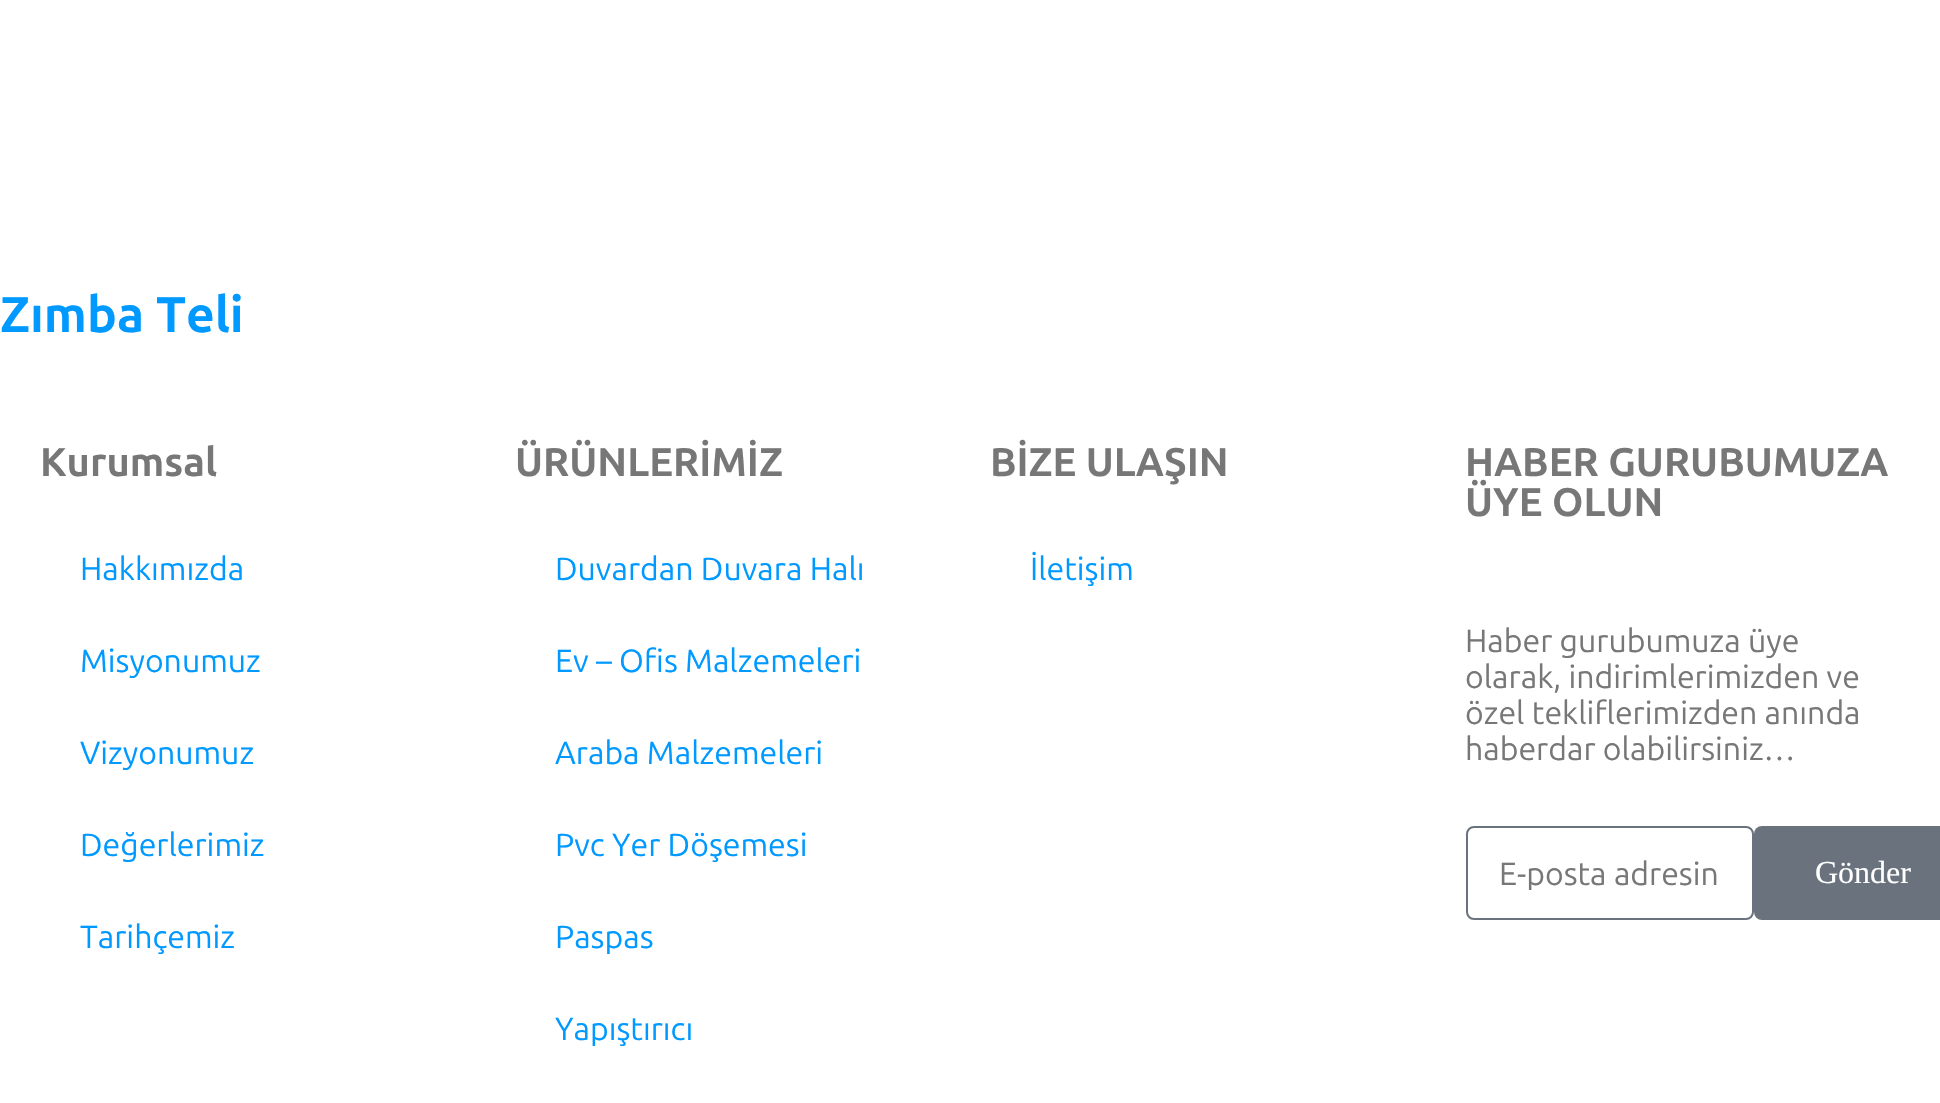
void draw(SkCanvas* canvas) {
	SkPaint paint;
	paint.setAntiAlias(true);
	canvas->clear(0xffffffff);
	SkFont f1(fontMgr->matchFamilyStyle("Ubuntu", SkFontStyle::Bold()), 50);
	f1.setSubpixel(true);
	paint.setColor(0xff0099ff);
	canvas->drawString("Zımba Teli", 0, 332, f1, paint);
	SkFont f2(fontMgr->matchFamilyStyle("Ubuntu", SkFontStyle::Bold()), 40);
	f2.setSubpixel(true);
	paint.setColor(0xff777777);
	canvas->drawString("Kurumsal", 40, 476, f2, paint);
	SkFont f3(fontMgr->matchFamilyStyle("Ubuntu", SkFontStyle::Normal()), 32);
	f3.setSubpixel(true);
	paint.setColor(0xff0099ff);
	canvas->drawString("Hakkımızda", 80, 580, f3, paint);
	canvas->drawString("Misyonumuz", 80, 672, f3, paint);
	canvas->drawString("Vizyonumuz", 80, 764, f3, paint);
	canvas->drawString("Değerlerimiz", 80, 856, f3, paint);
	canvas->drawString("Tarihçemiz", 80, 948, f3, paint);
	paint.setColor(0xff777777);
	canvas->drawString("ÜRÜNLERİMİZ", 515, 476, f2, paint);
	paint.setColor(0xff0099ff);
	canvas->drawString("Duvardan Duvara Halı", 555, 580, f3, paint);
	canvas->drawString("Ev – Ofis Malzemeleri", 555, 672, f3, paint);
	canvas->drawString("Araba Malzemeleri", 555, 764, f3, paint);
	canvas->drawString("Pvc Yer Döşemesi", 555, 856, f3, paint);
	canvas->drawString("Paspas", 555, 948, f3, paint);
	canvas->drawString("Yapıştırıcı", 555, 1040, f3, paint);
	paint.setColor(0xff777777);
	canvas->drawString("BİZE ULAŞIN", 990, 476, f2, paint);
	paint.setColor(0xff0099ff);
	canvas->drawString("İletişim", 1030, 580, f3, paint);
	paint.setColor(0xff777777);
	canvas->drawString("HABER GURUBUMUZA", 1465, 476, f2, paint);
	canvas->drawString("ÜYE OLUN", 1465, 516, f2, paint);
	canvas->drawString("Haber gurubumuza üye", 1465, 652, f3, paint);
	canvas->drawString("olarak, indirimlerimizden ve", 1465, 688, f3, paint);
	canvas->drawString("özel tekliflerimizden anında", 1465, 724, f3, paint);
	canvas->drawString("haberdar olabilirsiniz…", 1465, 760, f3, paint);
	paint.setStroke(true);
	paint.setStrokeWidth(2);
	paint.setColor(0xff69727d);
	canvas->drawRoundRect(SkRect::MakeXYWH(1467, 827, 286, 92), 7, 7, paint);
	canvas->save();
	canvas->clipRect(SkRect::MakeXYWH(1500, 854, 220, 36));
	paint.setStroke(false);
	paint.setColor(0xff777777);
	canvas->drawString("E-posta adresin", 1499, 885, f3, paint);
	canvas->restore();
	paint.setColor(0xff69727d);
	canvas->drawRoundRect(SkRect::MakeXYWH(1754, 826, 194, 94), 8, 8, paint);
	SkFont f4(fontMgr->matchFamilyStyle("Liberation Serif", SkFontStyle::Normal()), 32);
	f4.setSubpixel(true);
	paint.setColor(0xffffffff);
	canvas->drawString("Gönder", 1815, 883, f4, paint);
}
